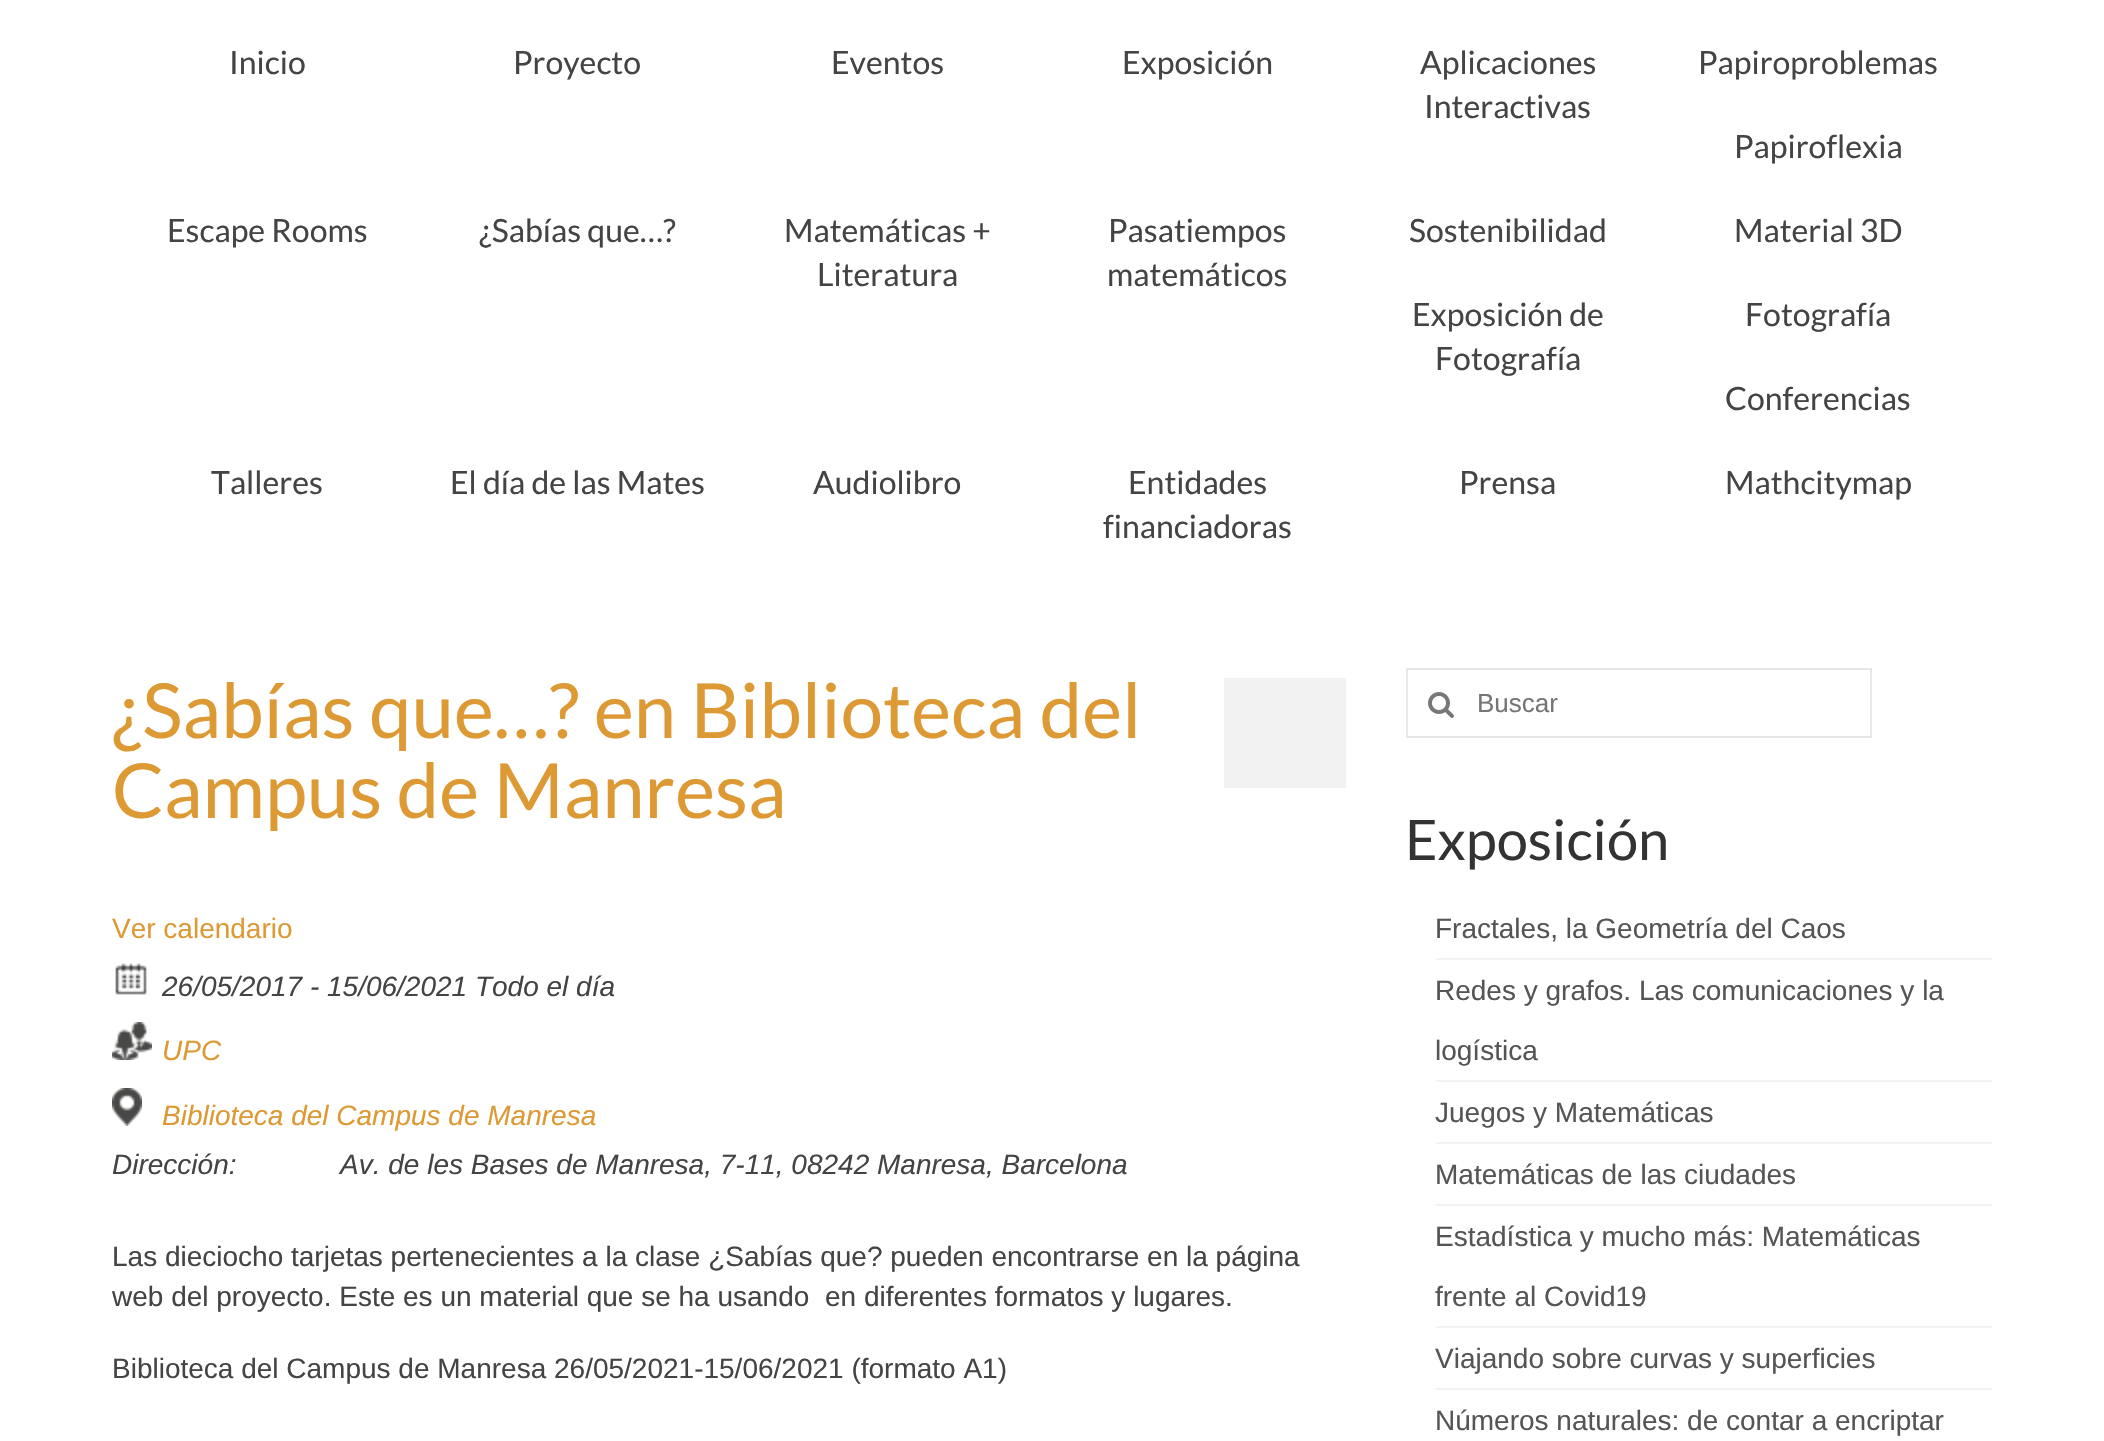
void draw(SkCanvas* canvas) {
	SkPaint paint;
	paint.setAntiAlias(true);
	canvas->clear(0xffffffff);
	SkFont f1(fontMgr->matchFamilyStyle("Lato", SkFontStyle::Normal()), 32);
	f1.setSubpixel(true);
	paint.setColor(0xff444444);
	canvas->drawString("Inicio", 229, 74, f1, paint);
	canvas->drawString("Proyecto", 513, 74, f1, paint);
	canvas->drawString("Eventos", 831, 74, f1, paint);
	canvas->drawString("Exposición", 1122, 74, f1, paint);
	canvas->drawString("Aplicaciones", 1420, 74, f1, paint);
	canvas->drawString("Interactivas", 1424, 118, f1, paint);
	canvas->drawString("Papiroproblemas", 1698, 74, f1, paint);
	canvas->drawString("Papiroflexia", 1734, 158, f1, paint);
	canvas->drawString("Escape Rooms", 167, 242, f1, paint);
	canvas->drawString("¿Sabías que…?", 479, 242, f1, paint);
	canvas->drawString("Matemáticas +", 784, 242, f1, paint);
	canvas->drawString("Literatura", 817, 286, f1, paint);
	canvas->drawString("Pasatiempos", 1108, 242, f1, paint);
	canvas->drawString("matemáticos", 1107, 286, f1, paint);
	canvas->drawString("Sostenibilidad", 1409, 242, f1, paint);
	canvas->drawString("Material 3D", 1734, 242, f1, paint);
	canvas->drawString("Exposición de", 1412, 326, f1, paint);
	canvas->drawString("Fotografía", 1435, 370, f1, paint);
	canvas->drawString("Fotografía", 1745, 326, f1, paint);
	canvas->drawString("Conferencias", 1725, 410, f1, paint);
	canvas->drawString("Talleres", 211, 494, f1, paint);
	canvas->drawString("El día de las Mates", 450, 494, f1, paint);
	canvas->drawString("Audiolibro", 813, 494, f1, paint);
	canvas->drawString("Entidades", 1128, 494, f1, paint);
	canvas->drawString("financiadoras", 1103, 538, f1, paint);
	canvas->drawString("Prensa", 1459, 494, f1, paint);
	canvas->drawString("Mathcitymap", 1725, 494, f1, paint);
	SkFont f2(fontMgr->matchFamilyStyle("Lato", SkFontStyle::Normal()), 76);
	f2.setSubpixel(true);
	paint.setColor(0xffdd9933);
	canvas->drawString("¿Sabías que…? en Biblioteca del", 112, 738, f2, paint);
	canvas->drawString("Campus de Manresa", 112, 818, f2, paint);
	paint.setColor(0xfff2f2f2);
	canvas->drawRect(SkRect::MakeXYWH(1224, 678, 122, 110), paint);
	SkFont f3(fontMgr->matchFamilyStyle("Liberation Sans", SkFontStyle::Normal()), 28);
	f3.setSubpixel(true);
	paint.setColor(0xffdd9933);
	canvas->drawString("Ver calendario", 112, 938, f3, paint);
	canvas->drawImageRect(SkImages::DeferredFromEncodedData(SkData::MakeFromFileName("img1.png")), SkRect::MakeXYWH(115, 963, 32, 32), SkSamplingOptions());
	SkFont f4(fontMgr->matchFamilyStyle("Liberation Sans", SkFontStyle::Italic()), 28);
	f4.setSubpixel(true);
	paint.setColor(0xff444444);
	canvas->drawString("26/05/2017 - 15/06/2021 Todo el día", 162, 996, f4, paint);
	canvas->drawImageRect(SkImages::DeferredFromEncodedData(SkData::MakeFromFileName("img2.png")), SkRect::MakeXYWH(112, 1022, 40, 38), SkSamplingOptions());
	paint.setColor(0xffdd9933);
	canvas->drawString("UPC", 162, 1060, f4, paint);
	canvas->drawImageRect(SkImages::DeferredFromEncodedData(SkData::MakeFromFileName("img3.png")), SkRect::MakeXYWH(112, 1088, 30, 38), SkSamplingOptions());
	canvas->drawString("Biblioteca del Campus de Manresa", 162, 1125, f4, paint);
	paint.setColor(0xff444444);
	canvas->drawString("Dirección:", 112, 1174, f4, paint);
	canvas->drawString("Av. de les Bases de Manresa, 7-11, 08242 Manresa, Barcelona", 340, 1174, f4, paint);
	canvas->drawString("Las dieciocho tarjetas pertenecientes a la clase ¿Sabías que? pueden encontrarse en la página", 112, 1266, f3, paint);
	canvas->drawString("web del proyecto. Este es un material que se ha usando", 112, 1306, f3, paint);
	canvas->drawString("en diferentes formatos y lugares.", 825, 1306, f3, paint);
	canvas->drawString("Biblioteca del Campus de Manresa 26/05/2021-15/06/2021 (formato A1)", 112, 1378, f3, paint);
	paint.setStroke(true);
	paint.setStrokeWidth(2);
	paint.setColor(0xffe7e7e7);
	canvas->drawRect(SkRect::MakeXYWH(1407, 669, 464, 68), paint);
	canvas->drawImageRect(SkImages::DeferredFromEncodedData(SkData::MakeFromFileName("img4.png")), SkRect::MakeXYWH(1428, 692, 26, 26), SkSamplingOptions());
	SkFont f5(fontMgr->matchFamilyStyle("Liberation Sans", SkFontStyle::Normal()), 26);
	f5.setSubpixel(true);
	paint.setStroke(false);
	paint.setColor(0xff757575);
	canvas->drawString("Buscar", 1477, 712, f5, paint);
	SkFont f6(fontMgr->matchFamilyStyle("Lato", SkFontStyle::Normal()), 56);
	f6.setSubpixel(true);
	paint.setColor(0xff333333);
	canvas->drawString("Exposición", 1405, 860, f6, paint);
	paint.setColor(0xfff2f2f2);
	canvas->drawRect(SkRect::MakeXYWH(1436, 958, 556, 2), paint);
	paint.setColor(0xff555555);
	canvas->drawString("Fractales, la Geometría del Caos", 1435, 938, f3, paint);
	paint.setColor(0xfff2f2f2);
	canvas->drawRect(SkRect::MakeXYWH(1436, 1080, 556, 2), paint);
	paint.setColor(0xff555555);
	canvas->drawString("Redes y grafos. Las comunicaciones y la", 1435, 1000, f3, paint);
	canvas->drawString("logística", 1435, 1060, f3, paint);
	paint.setColor(0xfff2f2f2);
	canvas->drawRect(SkRect::MakeXYWH(1436, 1142, 556, 2), paint);
	paint.setColor(0xff555555);
	canvas->drawString("Juegos y Matemáticas", 1435, 1122, f3, paint);
	paint.setColor(0xfff2f2f2);
	canvas->drawRect(SkRect::MakeXYWH(1436, 1204, 556, 2), paint);
	paint.setColor(0xff555555);
	canvas->drawString("Matemáticas de las ciudades", 1435, 1184, f3, paint);
	paint.setColor(0xfff2f2f2);
	canvas->drawRect(SkRect::MakeXYWH(1436, 1326, 556, 2), paint);
	paint.setColor(0xff555555);
	canvas->drawString("Estadística y mucho más: Matemáticas", 1435, 1246, f3, paint);
	canvas->drawString("frente al Covid19", 1435, 1306, f3, paint);
	paint.setColor(0xfff2f2f2);
	canvas->drawRect(SkRect::MakeXYWH(1436, 1388, 556, 2), paint);
	paint.setColor(0xff555555);
	canvas->drawString("Viajando sobre curvas y superficies", 1435, 1368, f3, paint);
	canvas->drawString("Números naturales: de contar a encriptar", 1435, 1430, f3, paint);
}
